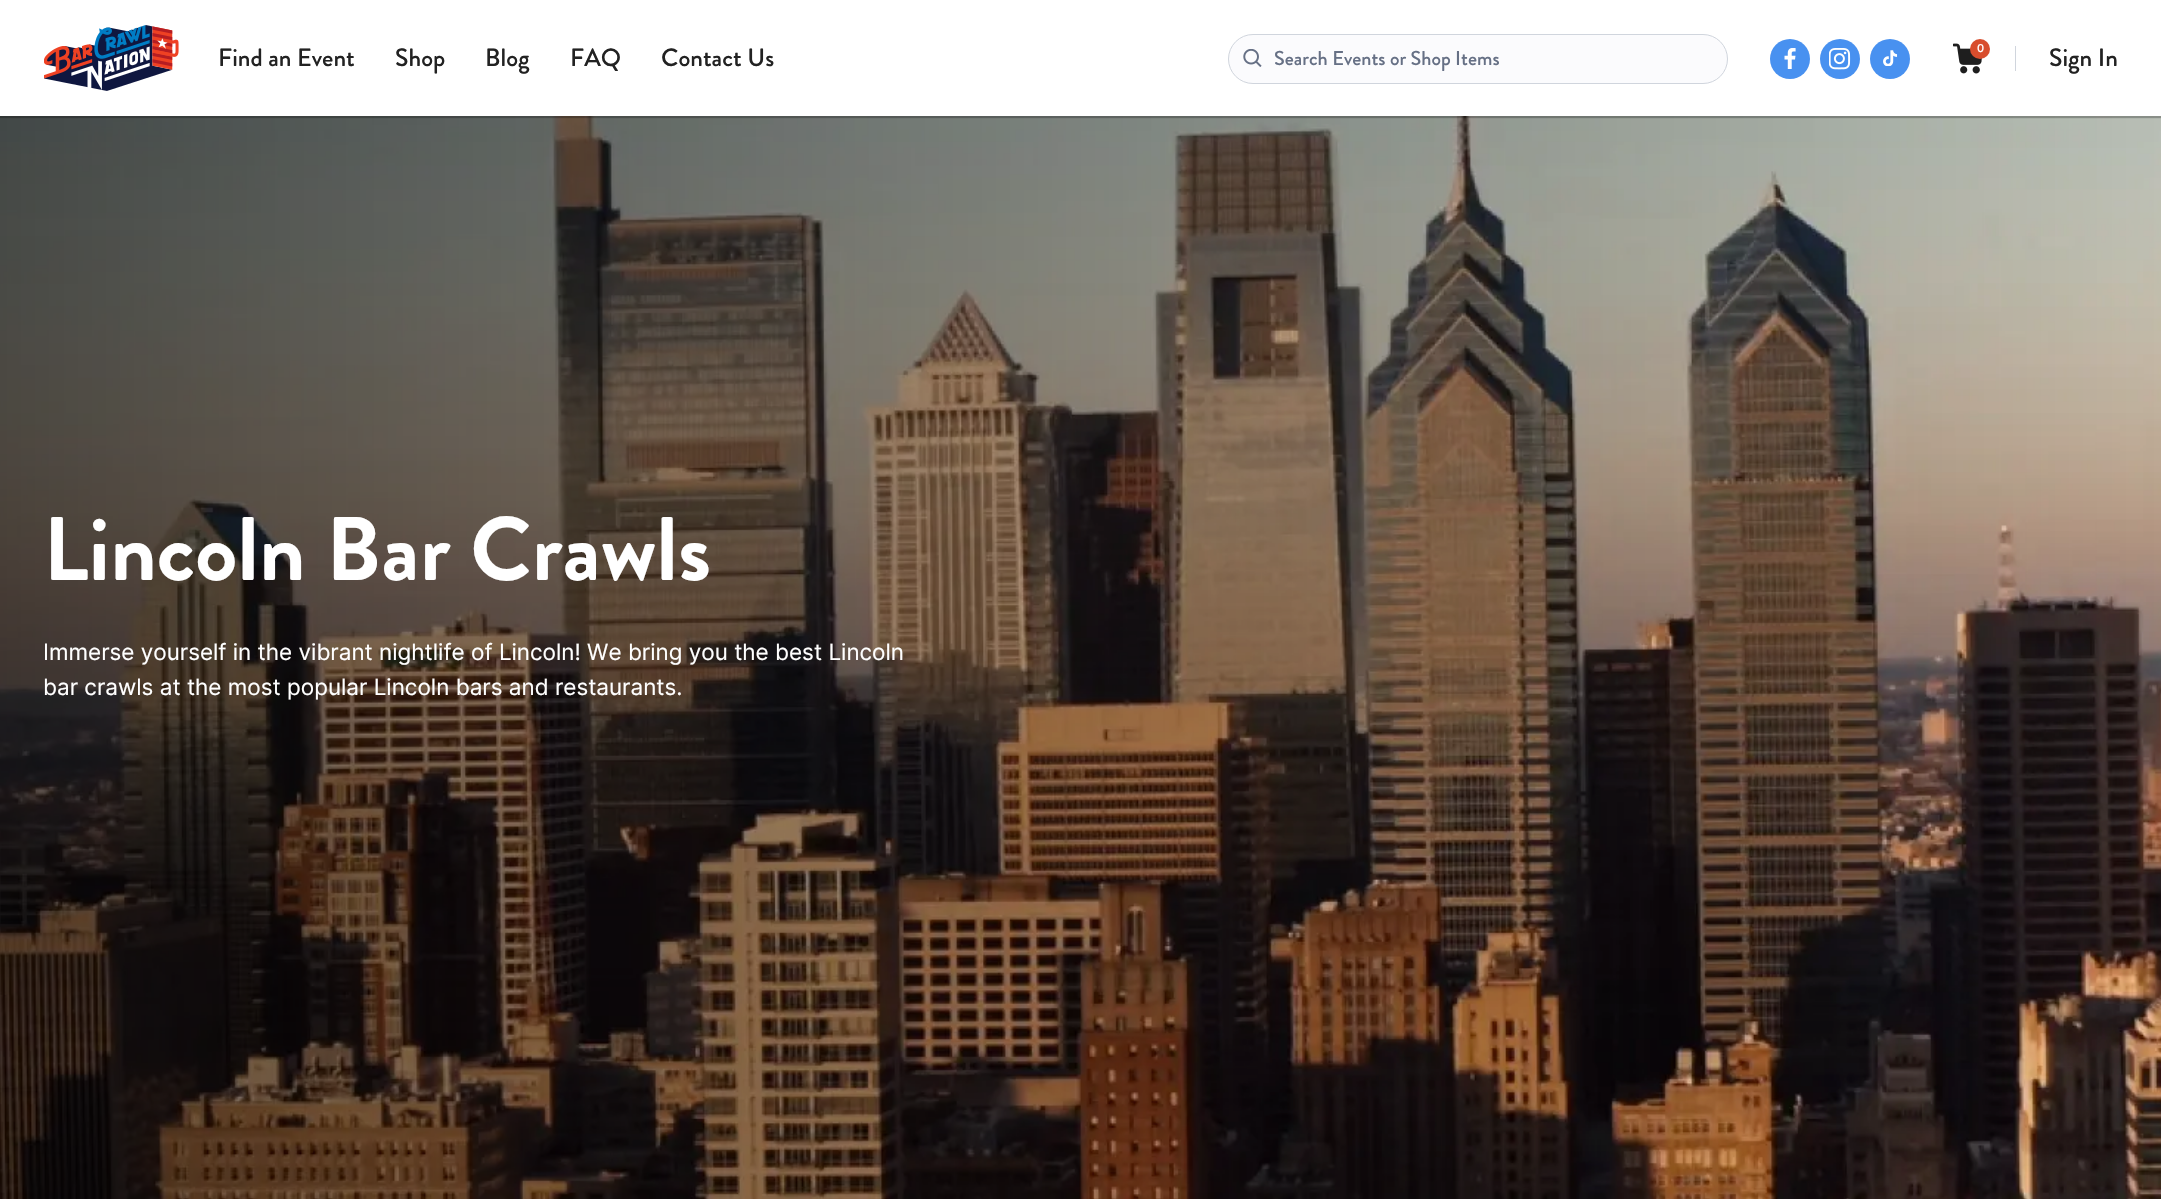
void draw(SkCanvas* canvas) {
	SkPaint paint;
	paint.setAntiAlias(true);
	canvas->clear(0xffffffff);
	canvas->drawImageRect(SkImages::DeferredFromEncodedData(SkData::MakeFromFileName("img7.png")), SkRect::MakeXYWH(0, 116, 2161, 1083), SkSamplingOptions());
	paint.setColor(0x40000000);
	paint.setMaskFilter(SkMaskFilter::MakeBlur(kNormal_SkBlurStyle, 0.5));
	canvas->drawRect(SkRect::MakeXYWH(0, 1, 2161, 117), paint);
	paint.setMaskFilter(nullptr);
	paint.setColor(0xffffffff);
	canvas->drawRect(SkRect::MakeXYWH(0, 0, 2161, 116), paint);
	canvas->drawImageRect(SkImages::DeferredFromEncodedData(SkData::MakeFromFileName("img1.png")), SkRect::MakeXYWH(44, 25, 135, 66), SkSamplingOptions());
	SkFont f1(fontMgr->matchFamilyStyle("Brandon Grotesque", SkFontStyle(500, SkFontStyle::kNormal_Width, SkFontStyle::kUpright_Slant)), 25);
	f1.setSubpixel(true);
	paint.setColor(0xff222222);
	canvas->drawString("Find an Event", 218, 66, f1, paint);
	canvas->drawString("Shop", 395, 66, f1, paint);
	canvas->drawString("Blog", 485, 66, f1, paint);
	canvas->drawString("FAQ", 570, 66, f1, paint);
	canvas->drawString("Contact Us", 661, 66, f1, paint);
	paint.setColor(0xfffbfbfd);
	canvas->drawRoundRect(SkRect::MakeXYWH(1228.5, 34.5, 499, 49), 24.5, 24.5, paint);
	paint.setStroke(true);
	paint.setStrokeWidth(1);
	paint.setColor(0xffd0d5dd);
	canvas->drawRoundRect(SkRect::MakeXYWH(1228.5, 34.5, 499, 49), 24.5, 24.5, paint);
	canvas->drawImageRect(SkImages::DeferredFromEncodedData(SkData::MakeFromFileName("img2.png")), SkRect::MakeXYWH(1243, 49, 19, 18), SkSamplingOptions());
	SkFont f2(fontMgr->matchFamilyStyle("Brandon Grotesque", SkFontStyle(500, SkFontStyle::kNormal_Width, SkFontStyle::kUpright_Slant)), 20);
	f2.setSubpixel(true);
	paint.setStroke(false);
	paint.setColor(0xff667085);
	canvas->drawString("Search Events or Shop Items", 1274, 65, f2, paint);
	paint.setColor(0xff4891f0);
	canvas->drawCircle(1790, 59, 20, paint);
	canvas->drawImageRect(SkImages::DeferredFromEncodedData(SkData::MakeFromFileName("img3.png")), SkRect::MakeXYWH(1784, 48, 12, 21), SkSamplingOptions());
	canvas->drawCircle(1840, 59, 20, paint);
	canvas->drawImageRect(SkImages::DeferredFromEncodedData(SkData::MakeFromFileName("img4.png")), SkRect::MakeXYWH(1829, 48, 22, 22), SkSamplingOptions());
	canvas->drawCircle(1890, 59, 20, paint);
	canvas->drawImageRect(SkImages::DeferredFromEncodedData(SkData::MakeFromFileName("img5.png")), SkRect::MakeXYWH(1883, 50, 15, 16), SkSamplingOptions());
	canvas->drawImageRect(SkImages::DeferredFromEncodedData(SkData::MakeFromFileName("img6.png")), SkRect::MakeXYWH(1953, 43, 29, 31), SkSamplingOptions());
	paint.setColor(0xffd84d2d);
	canvas->drawCircle(1980, 49, 10, paint);
	SkFont f3(fontMgr->matchFamilyStyle("Inter", SkFontStyle(500, SkFontStyle::kNormal_Width, SkFontStyle::kUpright_Slant)), 11);
	f3.setSubpixel(true);
	paint.setColor(0xffffffff);
	canvas->drawString("0", 1977, 52, f3, paint);
	paint.setColor(0xffd0d5dd);
	canvas->drawRect(SkRect::MakeXYWH(2015, 46, 1, 25), paint);
	paint.setColor(0xff222222);
	canvas->drawString("Sign In", 2049, 66, f1, paint);
	SkFont f4(fontMgr->matchFamilyStyle("Brandon Grotesque", SkFontStyle::Bold()), 90);
	f4.setSubpixel(true);
	paint.setColor(0xffffffff);
	canvas->drawString("Lincoln Bar Crawls", 43, 580, f4, paint);
	SkFont f5(fontMgr->matchFamilyStyle("Inter", SkFontStyle::Normal()), 22.5);
	f5.setSubpixel(true);
	canvas->drawString("Immerse yourself in the vibrant nightlife of Lincoln! We bring you the best Lincoln", 43, 660, f5, paint);
	canvas->drawString("bar crawls at the most popular Lincoln bars and restaurants.", 43, 695, f5, paint);
}
